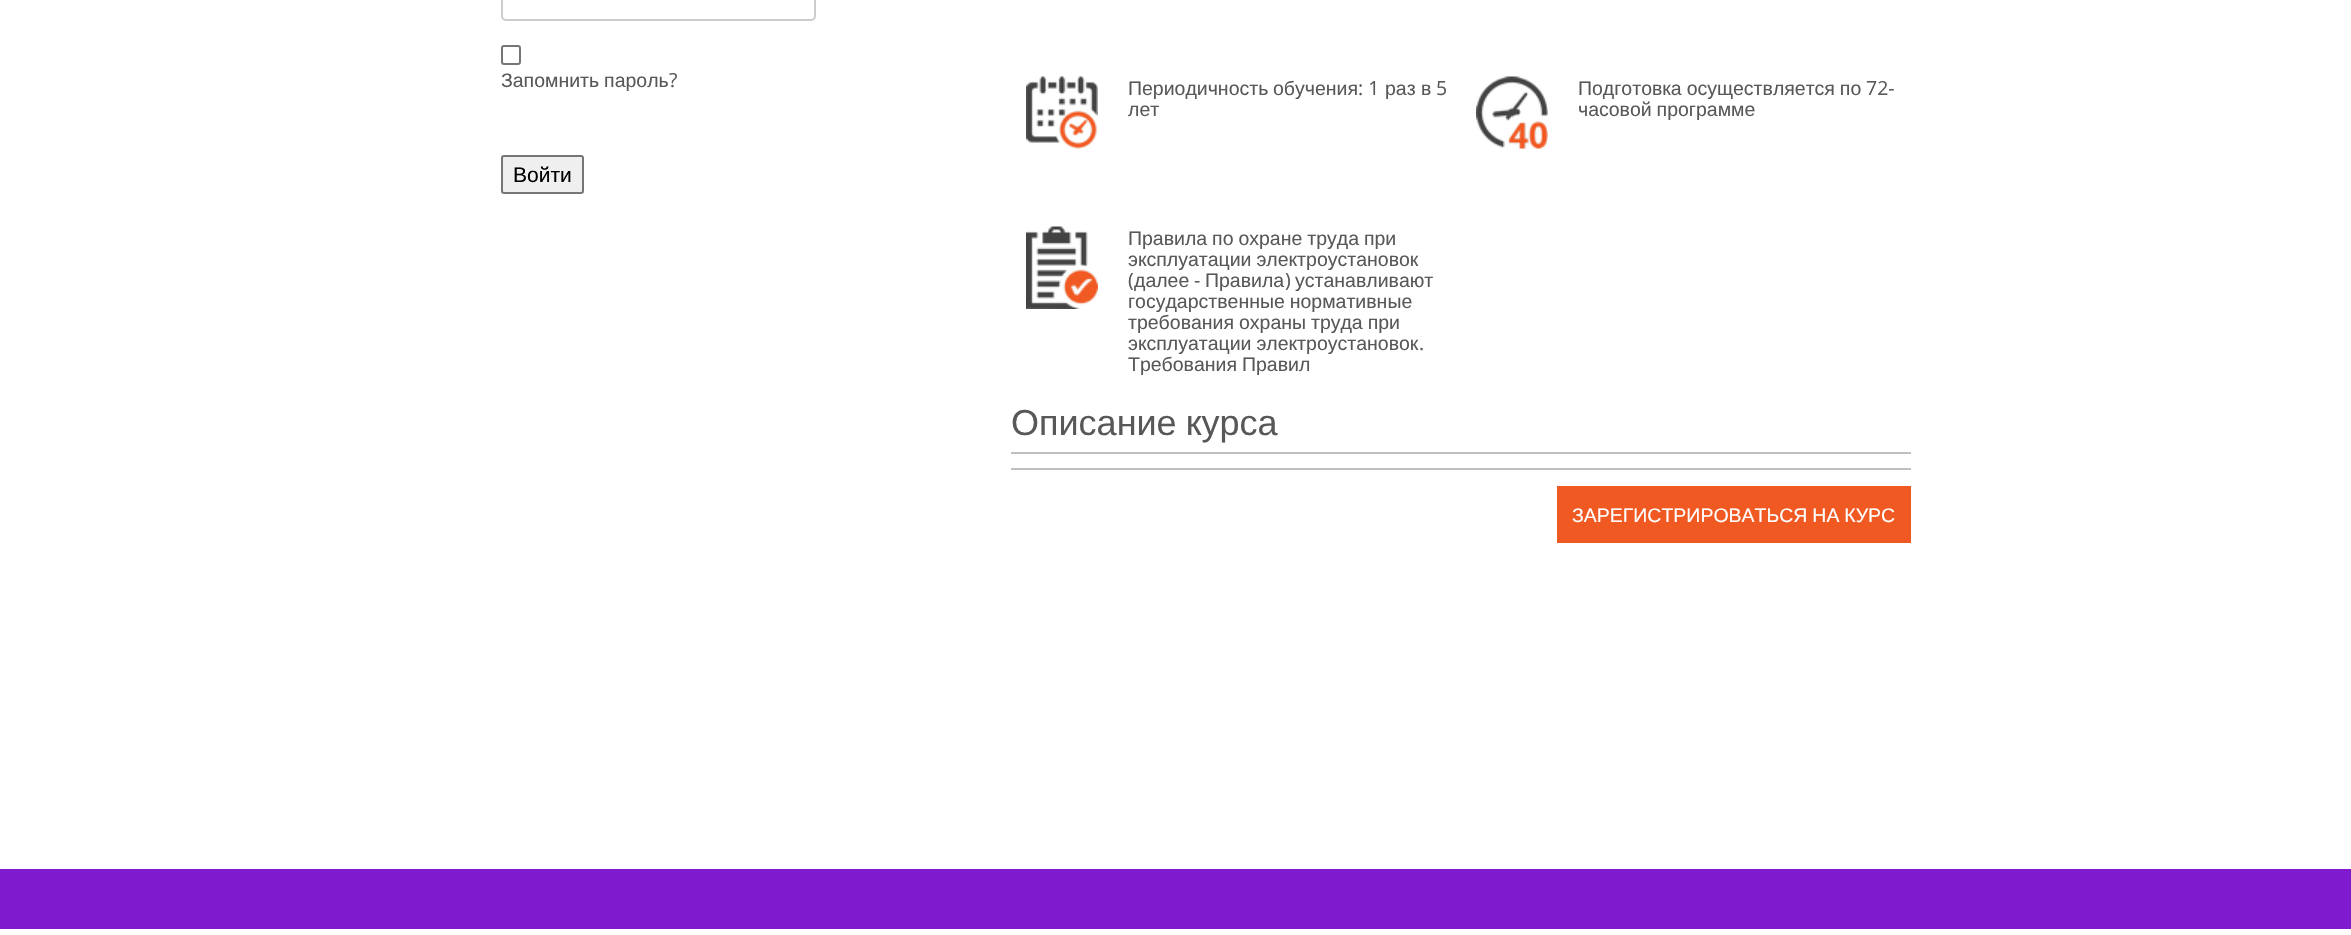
void draw(SkCanvas* canvas) {
	SkPaint paint;
	paint.setAntiAlias(true);
	auto spacedText = [&](const char* s, float x, float y, const SkFont& font, const SkPaint& ink, float letter, float word) {
		std::vector<SkGlyphID> glyphs(font.countText(s, strlen(s), SkTextEncoding::kUTF8));
		std::vector<float> xs(glyphs.size());
		font.textToGlyphs(s, strlen(s), SkTextEncoding::kUTF8, glyphs);
		font.getXPos(glyphs, xs, x);
		float extra = 0;
		for (size_t i = 0; i < glyphs.size(); i++) {
			xs[i] += extra;
			extra += letter + word * (glyphs[i] == font.unicharToGlyph(' '));
		}
		canvas->drawTextBlob(SkTextBlob::MakeFromPosHGlyphs(glyphs, xs, y, font), 0, 0, ink);
	};
	canvas->clear(0xffffffff);
	paint.setStroke(true);
	paint.setStrokeWidth(2);
	paint.setColor(0xffcccccc);
	canvas->drawRoundRect(SkRect::MakeXYWH(502, -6, 313, 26), 4, 4, paint);
	paint.setColor(0xff767676);
	canvas->drawRoundRect(SkRect::MakeXYWH(502, 46, 18, 18), 2, 2, paint);
	SkFont f1(fontMgr->matchFamilyStyle("Liberation Sans", SkFontStyle::Normal()), 19.5);
	f1.setSubpixel(true);
	paint.setStroke(false);
	paint.setColor(0xff58585a);
	spacedText("Запомнить пароль", 501, 87, f1, paint, 0, -0.5);
	SkFont f2(fontMgr->matchFamilyStyle("Open Sans", SkFontStyle::Normal()), 19.5);
	f2.setSubpixel(true);
	canvas->drawString("?", 669, 87, f2, paint);
	paint.setColor(0xffefefef);
	canvas->drawRoundRect(SkRect::MakeXYWH(502, 156, 81, 37), 2, 2, paint);
	paint.setStroke(true);
	paint.setColor(0xff767676);
	canvas->drawRoundRect(SkRect::MakeXYWH(502, 156, 81, 37), 2, 2, paint);
	SkFont f3(fontMgr->matchFamilyStyle("Liberation Sans", SkFontStyle::Normal()), 21);
	f3.setSubpixel(true);
	paint.setStroke(false);
	paint.setColor(0xff000000);
	canvas->drawString("Войти", 513, 182, f3, paint);
	canvas->drawImageRect(SkImages::DeferredFromEncodedData(SkData::MakeFromFileName("img1.png")), SkRect::MakeXYWH(1026, 76, 72, 73), SkSamplingOptions());
	paint.setColor(0xff58585a);
	canvas->drawString("Периодичность", 1128, 95, f1, paint);
	canvas->drawString("обучения", 1273, 95, f1, paint);
	canvas->drawString(": 1", 1358, 95, f2, paint);
	canvas->drawString("раз", 1385, 95, f1, paint);
	canvas->drawString("в", 1421, 95, f1, paint);
	canvas->drawString("5", 1436, 95, f2, paint);
	canvas->drawString("лет", 1128, 116, f1, paint);
	canvas->drawImageRect(SkImages::DeferredFromEncodedData(SkData::MakeFromFileName("img2.png")), SkRect::MakeXYWH(1476, 76, 72, 73), SkSamplingOptions());
	spacedText("Подготовка осуществляется по", 1578, 95, f1, paint, 0, -0.5);
	canvas->drawString("72-", 1866, 95, f2, paint);
	spacedText("часовой программе", 1578, 116, f1, paint, 0, -0.5);
	canvas->drawImageRect(SkImages::DeferredFromEncodedData(SkData::MakeFromFileName("img3.png")), SkRect::MakeXYWH(1026, 226, 72, 83), SkSamplingOptions());
	spacedText("Правила по охране труда при", 1128, 245, f1, paint, 0, -0.5);
	spacedText("эксплуатации электроустановок", 1128, 266, f1, paint, 0, -0.5);
	canvas->drawString("(", 1128, 287, f2, paint);
	canvas->drawString("далее", 1134, 287, f1, paint);
	canvas->drawString("-", 1194, 287, f2, paint);
	canvas->drawString("Правила", 1205, 287, f1, paint);
	canvas->drawString(")", 1285, 287, f2, paint);
	canvas->drawString("устанавливают", 1295, 287, f1, paint);
	spacedText("государственные нормативные", 1128, 308, f1, paint, 0, -0.5);
	spacedText("требования охраны труда при", 1128, 329, f1, paint, 0, -0.5);
	spacedText("эксплуатации электроустановок", 1128, 350, f1, paint, 0, -0.5);
	canvas->drawString(".", 1419, 350, f2, paint);
	spacedText("Требования Правил", 1128, 371, f1, paint, 0, -0.5);
	paint.setColor(0xffc0c0c1);
	canvas->drawRect(SkRect::MakeXYWH(1011, 452, 900, 2), paint);
	SkFont f4(fontMgr->matchFamilyStyle("Liberation Sans", SkFontStyle::Normal()), 36);
	f4.setSubpixel(true);
	paint.setColor(0xff58585a);
	spacedText("Описание курса", 1011, 435, f4, paint, 0, -1);
	paint.setColor(0xffc0c0c1);
	canvas->drawRect(SkRect::MakeXYWH(1011, 468, 900, 2), paint);
	paint.setColor(0xfff15922);
	canvas->drawRect(SkRect::MakeXYWH(1557, 486, 354, 57), paint);
	paint.setColor(0xffffffff);
	spacedText("ЗАРЕГИСТРИРОВАТЬСЯ НА КУРС", 1572, 522, f1, paint, 0, -0.5);
	paint.setColor(0xff801ace);
	canvas->drawRect(SkRect::MakeXYWH(0, 869, 2351, 60), paint);
}
